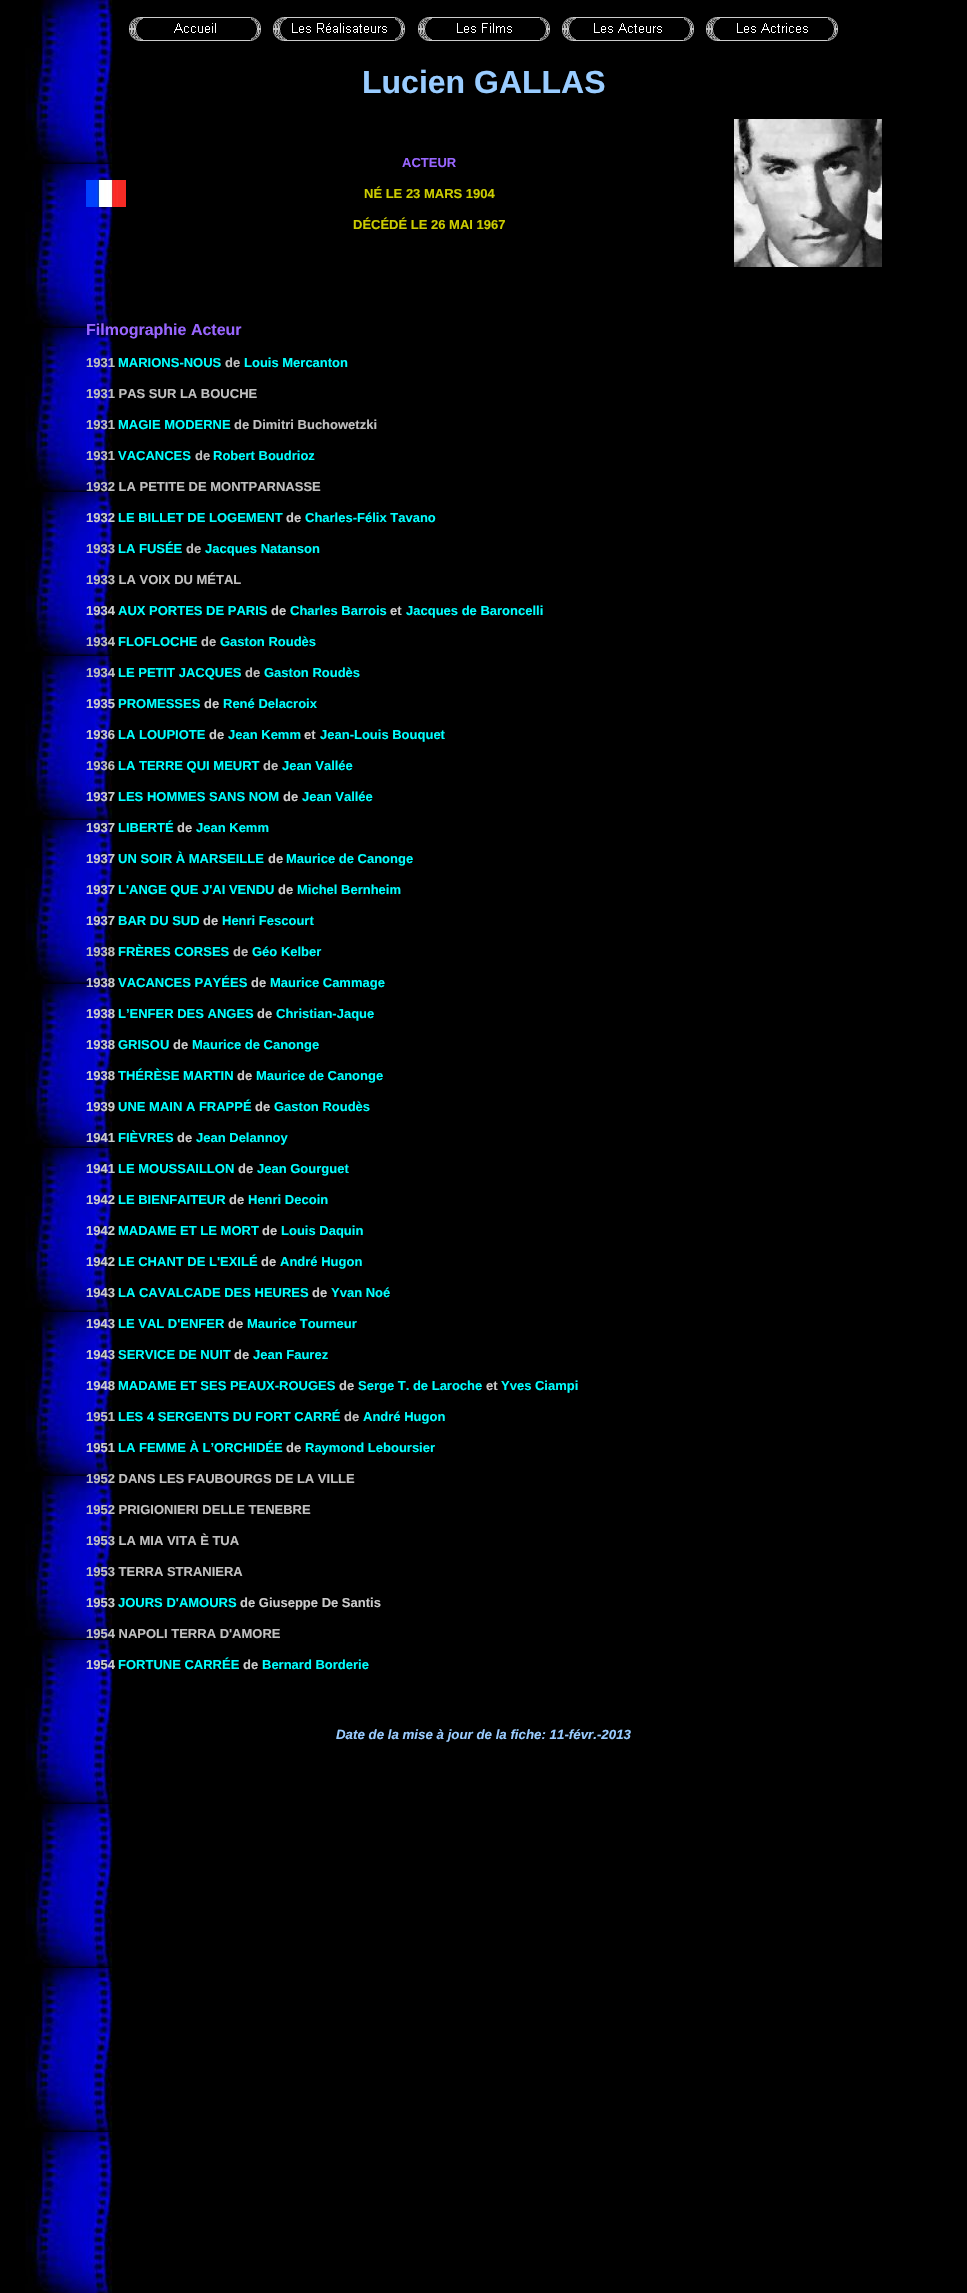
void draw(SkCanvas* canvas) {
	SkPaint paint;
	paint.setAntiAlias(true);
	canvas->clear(0xff000000);
	canvas->drawImageRect(SkImages::DeferredFromEncodedData(SkData::MakeFromFileName("img1.png")), SkRect::MakeXYWH(25, 0, 88, 2293), SkSamplingOptions());
	canvas->drawImageRect(SkImages::DeferredFromEncodedData(SkData::MakeFromFileName("img2.png")), SkRect::MakeXYWH(129, 17, 132, 24), SkSamplingOptions());
	canvas->drawImageRect(SkImages::DeferredFromEncodedData(SkData::MakeFromFileName("img3.png")), SkRect::MakeXYWH(273, 17, 132, 24), SkSamplingOptions());
	canvas->drawImageRect(SkImages::DeferredFromEncodedData(SkData::MakeFromFileName("img4.png")), SkRect::MakeXYWH(418, 17, 132, 24), SkSamplingOptions());
	canvas->drawImageRect(SkImages::DeferredFromEncodedData(SkData::MakeFromFileName("img5.png")), SkRect::MakeXYWH(562, 17, 132, 24), SkSamplingOptions());
	canvas->drawImageRect(SkImages::DeferredFromEncodedData(SkData::MakeFromFileName("img6.png")), SkRect::MakeXYWH(706, 17, 132, 24), SkSamplingOptions());
	SkFont f1(fontMgr->matchFamilyStyle("Liberation Sans", SkFontStyle::Bold()), 32);
	f1.setSubpixel(true);
	paint.setColor(0xff99ccff);
	canvas->drawString("Lucien GALLAS", 362, 93, f1, paint);
	canvas->drawImageRect(SkImages::DeferredFromEncodedData(SkData::MakeFromFileName("img7.png")), SkRect::MakeXYWH(86, 180, 40, 27), SkSamplingOptions());
	SkFont f2(fontMgr->matchFamilyStyle("Liberation Sans", SkFontStyle::Bold()), 13);
	f2.setSubpixel(true);
	paint.setColor(0xff9966ff);
	canvas->drawString("ACTEUR", 402, 167, f2, paint);
	paint.setColor(0xffcccc00);
	canvas->drawString("NÉ LE 23 MARS 1904", 364, 198, f2, paint);
	canvas->drawString("DÉCÉDÉ LE 26 MAI 1967", 353, 229, f2, paint);
	canvas->drawImageRect(SkImages::DeferredFromEncodedData(SkData::MakeFromFileName("img8.png")), SkRect::MakeXYWH(734, 119, 148, 148), SkSamplingOptions());
	SkFont f3(fontMgr->matchFamilyStyle("Liberation Sans", SkFontStyle::Bold()), 16);
	f3.setSubpixel(true);
	paint.setColor(0xff9966ff);
	canvas->drawString("Filmographie Acteur", 86, 335, f3, paint);
	paint.setColor(0xffc0c0c0);
	canvas->drawString("1931", 86, 367, f2, paint);
	paint.setColor(0xff00ffff);
	canvas->drawString("MARIONS-NOUS", 118, 367, f2, paint);
	paint.setColor(0xffc0c0c0);
	canvas->drawString("de", 225, 367, f2, paint);
	paint.setColor(0xff00ffff);
	canvas->drawString("Louis Mercanton", 244, 367, f2, paint);
	paint.setColor(0xffc0c0c0);
	canvas->drawString("1931 PAS SUR LA BOUCHE", 86, 398, f2, paint);
	canvas->drawString("1931", 86, 429, f2, paint);
	paint.setColor(0xff00ffff);
	canvas->drawString("MAGIE MODERNE", 118, 429, f2, paint);
	paint.setColor(0xffc0c0c0);
	canvas->drawString("de Dimitri Buchowetzki", 234, 429, f2, paint);
	canvas->drawString("1931", 86, 460, f2, paint);
	paint.setColor(0xff00ffff);
	canvas->drawString("VACANCES", 118, 460, f2, paint);
	paint.setColor(0xffc0c0c0);
	canvas->drawString("de", 195, 460, f2, paint);
	paint.setColor(0xff00ffff);
	canvas->drawString("Robert Boudrioz", 213, 460, f2, paint);
	paint.setColor(0xffc0c0c0);
	canvas->drawString("1932 LA PETITE DE MONTPARNASSE", 86, 491, f2, paint);
	paint.setColor(0xffcccccc);
	canvas->drawString("1932", 86, 522, f2, paint);
	paint.setColor(0xff00ffff);
	canvas->drawString("LE BILLET DE LOGEMENT", 118, 522, f2, paint);
	paint.setColor(0xffcccccc);
	canvas->drawString("de", 286, 522, f2, paint);
	paint.setColor(0xff00ffff);
	canvas->drawString("Charles-Félix Tavano", 305, 522, f2, paint);
	paint.setColor(0xffc0c0c0);
	canvas->drawString("1933", 86, 553, f2, paint);
	paint.setColor(0xff00ffff);
	canvas->drawString("LA FUSÉE", 118, 553, f2, paint);
	paint.setColor(0xffc0c0c0);
	canvas->drawString("de", 186, 553, f2, paint);
	paint.setColor(0xff00ffff);
	canvas->drawString("Jacques Natanson", 205, 553, f2, paint);
	paint.setColor(0xffc0c0c0);
	canvas->drawString("1933 LA VOIX DU MÉTAL", 86, 584, f2, paint);
	paint.setColor(0xffcccccc);
	canvas->drawString("1934", 86, 615, f2, paint);
	paint.setColor(0xff00ffff);
	canvas->drawString("AUX PORTES DE PARIS", 118, 615, f2, paint);
	paint.setColor(0xffcccccc);
	canvas->drawString("de", 271, 615, f2, paint);
	paint.setColor(0xff00ffff);
	canvas->drawString("Charles Barrois", 290, 615, f2, paint);
	paint.setColor(0xffcccccc);
	canvas->drawString("et", 390, 615, f2, paint);
	paint.setColor(0xff00ffff);
	canvas->drawString("Jacques de Baroncelli", 406, 615, f2, paint);
	paint.setColor(0xffc0c0c0);
	canvas->drawString("1934", 86, 646, f2, paint);
	paint.setColor(0xff00ffff);
	canvas->drawString("FLOFLOCHE", 118, 646, f2, paint);
	paint.setColor(0xffc0c0c0);
	canvas->drawString("de", 201, 646, f2, paint);
	paint.setColor(0xff00ffff);
	canvas->drawString("Gaston Roudès", 220, 646, f2, paint);
	paint.setColor(0xffc0c0c0);
	canvas->drawString("1934", 86, 677, f2, paint);
	paint.setColor(0xff00ffff);
	canvas->drawString("LE PETIT JACQUES", 118, 677, f2, paint);
	paint.setColor(0xffc0c0c0);
	canvas->drawString("de", 245, 677, f2, paint);
	paint.setColor(0xff00ffff);
	canvas->drawString("Gaston Roudès", 264, 677, f2, paint);
	paint.setColor(0xffcccccc);
	canvas->drawString("1935", 86, 708, f2, paint);
	paint.setColor(0xff00ffff);
	canvas->drawString("PROMESSES", 118, 708, f2, paint);
	paint.setColor(0xffcccccc);
	canvas->drawString("de", 204, 708, f2, paint);
	paint.setColor(0xff00ffff);
	canvas->drawString("René Delacroix", 223, 708, f2, paint);
	paint.setColor(0xffcccccc);
	canvas->drawString("1936", 86, 739, f2, paint);
	paint.setColor(0xff00ffff);
	canvas->drawString("LA LOUPIOTE", 118, 739, f2, paint);
	paint.setColor(0xffcccccc);
	canvas->drawString("de", 209, 739, f2, paint);
	paint.setColor(0xff00ffff);
	canvas->drawString("Jean Kemm", 228, 739, f2, paint);
	paint.setColor(0xffcccccc);
	canvas->drawString("et", 304, 739, f2, paint);
	paint.setColor(0xff00ffff);
	canvas->drawString("Jean-Louis Bouquet", 320, 739, f2, paint);
	paint.setColor(0xffc0c0c0);
	canvas->drawString("1936", 86, 770, f2, paint);
	paint.setColor(0xff00ffff);
	canvas->drawString("LA TERRE QUI MEURT", 118, 770, f2, paint);
	paint.setColor(0xffc0c0c0);
	canvas->drawString("de", 263, 770, f2, paint);
	paint.setColor(0xff00ffff);
	canvas->drawString("Jean Vallée", 282, 770, f2, paint);
	paint.setColor(0xffcccccc);
	canvas->drawString("1937", 86, 801, f2, paint);
	paint.setColor(0xff00ffff);
	canvas->drawString("LES HOMMES SANS NOM", 118, 801, f2, paint);
	paint.setColor(0xffcccccc);
	canvas->drawString("de", 283, 801, f2, paint);
	paint.setColor(0xff00ffff);
	canvas->drawString("Jean Vallée", 302, 801, f2, paint);
	paint.setColor(0xffcccccc);
	canvas->drawString("1937", 86, 832, f2, paint);
	paint.setColor(0xff00ffff);
	canvas->drawString("LIBERTÉ", 118, 832, f2, paint);
	paint.setColor(0xffcccccc);
	canvas->drawString("de", 177, 832, f2, paint);
	paint.setColor(0xff00ffff);
	canvas->drawString("Jean Kemm", 196, 832, f2, paint);
	paint.setColor(0xffcccccc);
	canvas->drawString("1937", 86, 863, f2, paint);
	paint.setColor(0xff00ffff);
	canvas->drawString("UN SOIR À MARSEILLE", 118, 863, f2, paint);
	paint.setColor(0xffcccccc);
	canvas->drawString("de", 268, 863, f2, paint);
	paint.setColor(0xff00ffff);
	canvas->drawString("Maurice de Canonge", 286, 863, f2, paint);
	paint.setColor(0xffcccccc);
	canvas->drawString("1937", 86, 894, f2, paint);
	paint.setColor(0xff00ffff);
	canvas->drawString("L'ANGE QUE J'AI VENDU", 118, 894, f2, paint);
	paint.setColor(0xffcccccc);
	canvas->drawString("de", 278, 894, f2, paint);
	paint.setColor(0xff00ffff);
	canvas->drawString("Michel Bernheim", 297, 894, f2, paint);
	paint.setColor(0xffcccccc);
	canvas->drawString("1937", 86, 925, f2, paint);
	paint.setColor(0xff00ffff);
	canvas->drawString("BAR DU SUD", 118, 925, f2, paint);
	paint.setColor(0xffcccccc);
	canvas->drawString("de", 203, 925, f2, paint);
	paint.setColor(0xff00ffff);
	canvas->drawString("Henri Fescourt", 222, 925, f2, paint);
	paint.setColor(0xffc0c0c0);
	canvas->drawString("1938", 86, 956, f2, paint);
	paint.setColor(0xff00ffff);
	canvas->drawString("FRÈRES CORSES", 118, 956, f2, paint);
	paint.setColor(0xffc0c0c0);
	canvas->drawString("de", 233, 956, f2, paint);
	paint.setColor(0xff00ffff);
	canvas->drawString("Géo Kelber", 252, 956, f2, paint);
	paint.setColor(0xffcccccc);
	canvas->drawString("1938", 86, 987, f2, paint);
	paint.setColor(0xff00ffff);
	canvas->drawString("VACANCES PAYÉES", 118, 987, f2, paint);
	paint.setColor(0xffcccccc);
	canvas->drawString("de", 251, 987, f2, paint);
	paint.setColor(0xff00ffff);
	canvas->drawString("Maurice Cammage", 270, 987, f2, paint);
	paint.setColor(0xffcccccc);
	canvas->drawString("1938", 86, 1018, f2, paint);
	paint.setColor(0xff00ffff);
	canvas->drawString("L’ENFER DES ANGES", 118, 1018, f2, paint);
	paint.setColor(0xffcccccc);
	canvas->drawString("de", 257, 1018, f2, paint);
	paint.setColor(0xff00ffff);
	canvas->drawString("Christian-Jaque", 276, 1018, f2, paint);
	paint.setColor(0xffcccccc);
	canvas->drawString("1938", 86, 1049, f2, paint);
	paint.setColor(0xff00ffff);
	canvas->drawString("GRISOU", 118, 1049, f2, paint);
	paint.setColor(0xffcccccc);
	canvas->drawString("de", 173, 1049, f2, paint);
	paint.setColor(0xff00ffff);
	canvas->drawString("Maurice de Canonge", 192, 1049, f2, paint);
	paint.setColor(0xffcccccc);
	canvas->drawString("1938", 86, 1080, f2, paint);
	paint.setColor(0xff00ffff);
	canvas->drawString("THÉRÈSE MARTIN", 118, 1080, f2, paint);
	paint.setColor(0xffcccccc);
	canvas->drawString("de", 237, 1080, f2, paint);
	paint.setColor(0xff00ffff);
	canvas->drawString("Maurice de Canonge", 256, 1080, f2, paint);
	paint.setColor(0xffcccccc);
	canvas->drawString("1939", 86, 1111, f2, paint);
	paint.setColor(0xff00ffff);
	canvas->drawString("UNE MAIN A FRAPPÉ", 118, 1111, f2, paint);
	paint.setColor(0xffcccccc);
	canvas->drawString("de", 255, 1111, f2, paint);
	paint.setColor(0xff00ffff);
	canvas->drawString("Gaston Roudès", 274, 1111, f2, paint);
	paint.setColor(0xffcccccc);
	canvas->drawString("1941", 86, 1142, f2, paint);
	paint.setColor(0xff00ffff);
	canvas->drawString("FIÈVRES", 118, 1142, f2, paint);
	paint.setColor(0xffcccccc);
	canvas->drawString("de", 177, 1142, f2, paint);
	paint.setColor(0xff00ffff);
	canvas->drawString("Jean Delannoy", 196, 1142, f2, paint);
	paint.setColor(0xffcccccc);
	canvas->drawString("1941", 86, 1173, f2, paint);
	paint.setColor(0xff00ffff);
	canvas->drawString("LE MOUSSAILLON", 118, 1173, f2, paint);
	paint.setColor(0xffcccccc);
	canvas->drawString("de", 238, 1173, f2, paint);
	paint.setColor(0xff00ffff);
	canvas->drawString("Jean Gourguet", 257, 1173, f2, paint);
	paint.setColor(0xffcccccc);
	canvas->drawString("1942", 86, 1204, f2, paint);
	paint.setColor(0xff00ffff);
	canvas->drawString("LE BIENFAITEUR", 118, 1204, f2, paint);
	paint.setColor(0xffcccccc);
	canvas->drawString("de", 229, 1204, f2, paint);
	paint.setColor(0xff00ffff);
	canvas->drawString("Henri Decoin", 248, 1204, f2, paint);
	paint.setColor(0xffcccccc);
	canvas->drawString("1942", 86, 1235, f2, paint);
	paint.setColor(0xff00ffff);
	canvas->drawString("MADAME ET LE MORT", 118, 1235, f2, paint);
	paint.setColor(0xffcccccc);
	canvas->drawString("de", 262, 1235, f2, paint);
	paint.setColor(0xff00ffff);
	canvas->drawString("Louis Daquin", 281, 1235, f2, paint);
	paint.setColor(0xffcccccc);
	canvas->drawString("1942", 86, 1266, f2, paint);
	paint.setColor(0xff00ffff);
	canvas->drawString("LE CHANT DE L'EXILÉ", 118, 1266, f2, paint);
	paint.setColor(0xffcccccc);
	canvas->drawString("de", 261, 1266, f2, paint);
	paint.setColor(0xff00ffff);
	canvas->drawString("André Hugon", 280, 1266, f2, paint);
	paint.setColor(0xffcccccc);
	canvas->drawString("1943", 86, 1297, f2, paint);
	paint.setColor(0xff00ffff);
	canvas->drawString("LA CAVALCADE DES HEURES", 118, 1297, f2, paint);
	paint.setColor(0xffcccccc);
	canvas->drawString("de", 312, 1297, f2, paint);
	paint.setColor(0xff00ffff);
	canvas->drawString("Yvan Noé", 331, 1297, f2, paint);
	paint.setColor(0xffcccccc);
	canvas->drawString("1943", 86, 1328, f2, paint);
	paint.setColor(0xff00ffff);
	canvas->drawString("LE VAL D'ENFER", 118, 1328, f2, paint);
	paint.setColor(0xffcccccc);
	canvas->drawString("de", 228, 1328, f2, paint);
	paint.setColor(0xff00ffff);
	canvas->drawString("Maurice Tourneur", 247, 1328, f2, paint);
	paint.setColor(0xffcccccc);
	canvas->drawString("1943", 86, 1359, f2, paint);
	paint.setColor(0xff00ffff);
	canvas->drawString("SERVICE DE NUIT", 118, 1359, f2, paint);
	paint.setColor(0xffcccccc);
	canvas->drawString("de", 234, 1359, f2, paint);
	paint.setColor(0xff00ffff);
	canvas->drawString("Jean Faurez", 253, 1359, f2, paint);
	paint.setColor(0xffcccccc);
	canvas->drawString("1948", 86, 1390, f2, paint);
	paint.setColor(0xff00ffff);
	canvas->drawString("MADAME ET SES PEAUX-ROUGES", 118, 1390, f2, paint);
	paint.setColor(0xffcccccc);
	canvas->drawString("de", 339, 1390, f2, paint);
	paint.setColor(0xff00ffff);
	canvas->drawString("Serge T. de Laroche", 358, 1390, f2, paint);
	paint.setColor(0xffcccccc);
	canvas->drawString("et", 486, 1390, f2, paint);
	paint.setColor(0xff00ffff);
	canvas->drawString("Yves Ciampi", 501, 1390, f2, paint);
	paint.setColor(0xffc0c0c0);
	canvas->drawString("1951", 86, 1421, f2, paint);
	paint.setColor(0xff00ffff);
	canvas->drawString("LES 4 SERGENTS DU FORT CARRÉ", 118, 1421, f2, paint);
	paint.setColor(0xffc0c0c0);
	canvas->drawString("de", 344, 1421, f2, paint);
	paint.setColor(0xff00ffff);
	canvas->drawString("André Hugon", 363, 1421, f2, paint);
	paint.setColor(0xffcccccc);
	canvas->drawString("1951", 86, 1452, f2, paint);
	paint.setColor(0xff00ffff);
	canvas->drawString("LA FEMME À L’ORCHIDÉE", 118, 1452, f2, paint);
	paint.setColor(0xffcccccc);
	canvas->drawString("de", 286, 1452, f2, paint);
	paint.setColor(0xff00ffff);
	canvas->drawString("Raymond Leboursier", 305, 1452, f2, paint);
	paint.setColor(0xffc0c0c0);
	canvas->drawString("1952 DANS LES FAUBOURGS DE LA VILLE", 86, 1483, f2, paint);
	canvas->drawString("1952 PRIGIONIERI DELLE TENEBRE", 86, 1514, f2, paint);
	canvas->drawString("1953 LA MIA VITA È TUA", 86, 1545, f2, paint);
	canvas->drawString("1953 TERRA STRANIERA", 86, 1576, f2, paint);
	paint.setColor(0xffcccccc);
	canvas->drawString("1953", 86, 1607, f2, paint);
	paint.setColor(0xff00ffff);
	canvas->drawString("JOURS D'AMOURS", 118, 1607, f2, paint);
	paint.setColor(0xffcccccc);
	canvas->drawString("de Giuseppe De Santis", 240, 1607, f2, paint);
	paint.setColor(0xffc0c0c0);
	canvas->drawString("1954 NAPOLI TERRA D'AMORE", 86, 1638, f2, paint);
	paint.setColor(0xffcccccc);
	canvas->drawString("1954", 86, 1669, f2, paint);
	paint.setColor(0xff00ffff);
	canvas->drawString("FORTUNE CARRÉE", 118, 1669, f2, paint);
	paint.setColor(0xffcccccc);
	canvas->drawString("de", 243, 1669, f2, paint);
	paint.setColor(0xff00ffff);
	canvas->drawString("Bernard Borderie", 262, 1669, f2, paint);
	SkFont f4(fontMgr->matchFamilyStyle("Liberation Sans", SkFontStyle::BoldItalic()), 13.3);
	f4.setSubpixel(true);
	paint.setColor(0xff99ccff);
	canvas->drawString("Date de la mise à jour de la fiche: 11-févr.-2013", 336, 1739, f4, paint);
}
